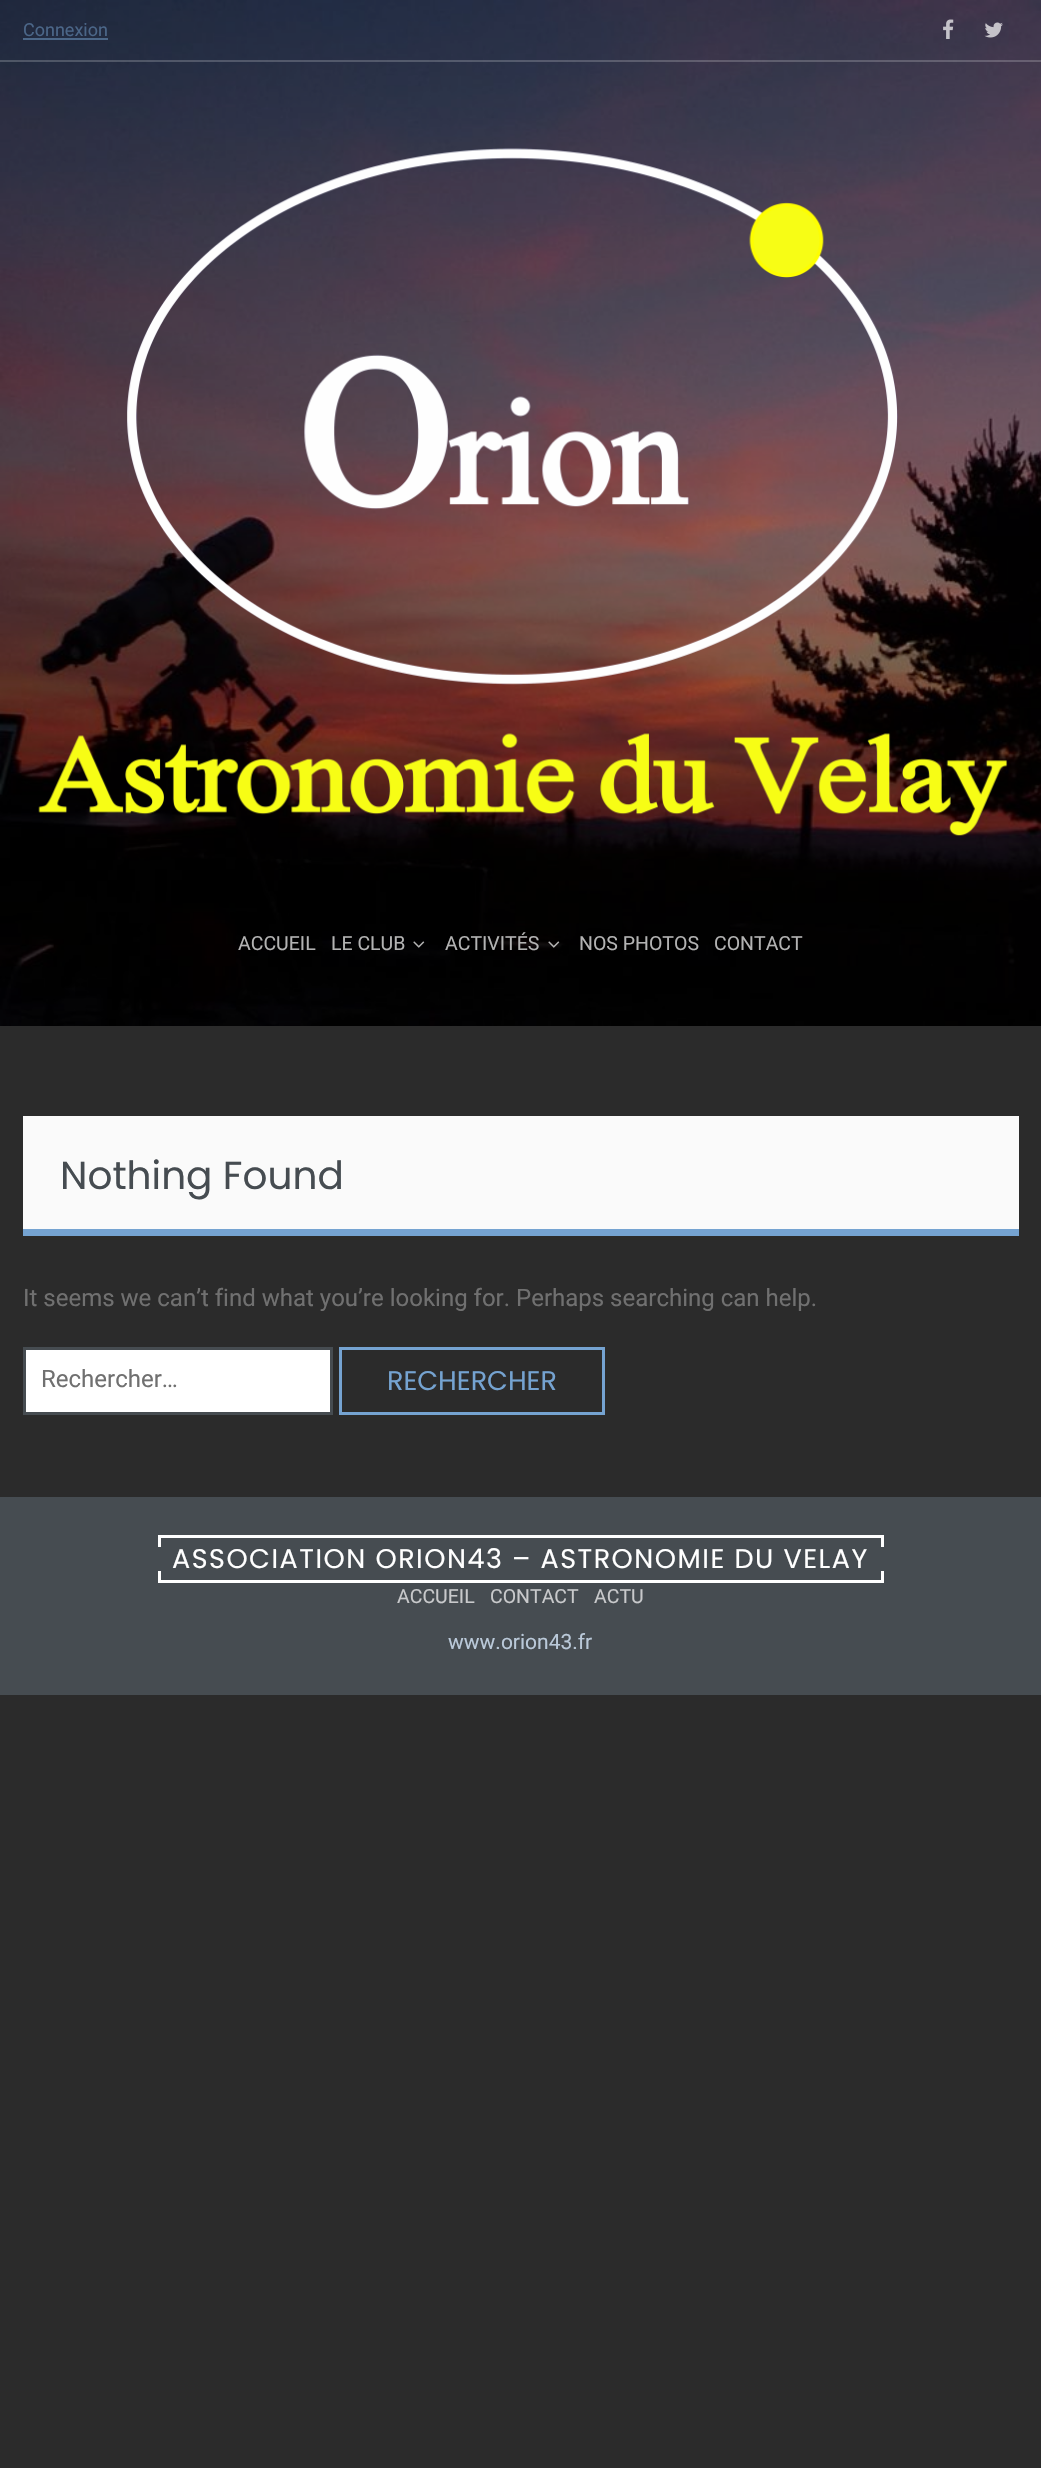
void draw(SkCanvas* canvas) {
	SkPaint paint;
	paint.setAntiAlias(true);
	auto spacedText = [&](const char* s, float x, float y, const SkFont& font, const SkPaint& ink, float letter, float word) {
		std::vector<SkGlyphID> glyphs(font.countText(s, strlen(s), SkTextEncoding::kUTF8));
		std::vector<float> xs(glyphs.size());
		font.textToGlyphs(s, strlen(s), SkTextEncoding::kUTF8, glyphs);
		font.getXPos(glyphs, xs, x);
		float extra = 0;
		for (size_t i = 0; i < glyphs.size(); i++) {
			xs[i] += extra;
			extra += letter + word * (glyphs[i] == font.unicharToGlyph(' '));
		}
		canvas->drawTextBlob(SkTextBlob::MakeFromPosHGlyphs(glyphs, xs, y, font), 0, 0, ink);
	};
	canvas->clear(0xff2b2b2b);
	canvas->drawImageRect(SkImages::DeferredFromEncodedData(SkData::MakeFromFileName("img1.png")), SkRect::MakeXYWH(0, 0, 1041, 1026), SkSamplingOptions());
	paint.setColor(0x33ffffff);
	canvas->drawRect(SkRect::MakeXYWH(0, 60, 1041, 2), paint);
	SkFont f1(fontMgr->matchFamilyStyle("Roboto", SkFontStyle::Normal()), 18);
	f1.setSubpixel(true);
	paint.setColor(0xff4b6688);
	canvas->drawString("Connexion", 23, 36, f1, paint);
	paint.setColor(0xff4c6788);
	canvas->drawRect(SkRect::MakeXYWH(23, 38, 85, 2), paint);
	canvas->drawImageRect(SkImages::DeferredFromEncodedData(SkData::MakeFromFileName("img2.png")), SkRect::MakeXYWH(943, 19, 11, 20), SkSamplingOptions());
	canvas->drawImageRect(SkImages::DeferredFromEncodedData(SkData::MakeFromFileName("img3.png")), SkRect::MakeXYWH(984, 22, 19, 16), SkSamplingOptions());
	canvas->drawImageRect(SkImages::DeferredFromEncodedData(SkData::MakeFromFileName("img4.png")), SkRect::MakeXYWH(38, 148, 970, 688), SkSamplingOptions());
	SkFont f2(fontMgr->matchFamilyStyle("Roboto", SkFontStyle::Normal()), 19.5);
	f2.setSubpixel(true);
	paint.setColor(0xffb3b3b3);
	canvas->drawString("ACCUEIL", 238, 950, f2, paint);
	canvas->drawString("LE CLUB", 331, 950, f2, paint);
	canvas->drawImageRect(SkImages::DeferredFromEncodedData(SkData::MakeFromFileName("img5.png")), SkRect::MakeXYWH(413, 941, 12, 7), SkSamplingOptions());
	canvas->drawString("ACTIVITÉS", 445, 950, f2, paint);
	canvas->drawImageRect(SkImages::DeferredFromEncodedData(SkData::MakeFromFileName("img6.png")), SkRect::MakeXYWH(548, 941, 12, 7), SkSamplingOptions());
	canvas->drawString("NOS PHOTOS", 579, 950, f2, paint);
	canvas->drawString("CONTACT", 714, 950, f2, paint);
	paint.setColor(0xfffafafa);
	canvas->drawRect(SkRect::MakeXYWH(23, 1116, 996, 113), paint);
	paint.setColor(0xff75a3d1);
	canvas->drawRect(SkRect::MakeXYWH(23, 1229, 996, 7), paint);
	SkFont f3(fontMgr->matchFamilyStyle("Poppins", SkFontStyle::Normal()), 39);
	f3.setSubpixel(true);
	paint.setColor(0xff464c51);
	canvas->drawString("Nothing Found", 60, 1189, f3, paint);
	SkFont f4(fontMgr->matchFamilyStyle("Roboto", SkFontStyle::Normal()), 24);
	f4.setSubpixel(true);
	paint.setColor(0xff707070);
	canvas->drawString("It seems we can’t find what you’re looking for. Perhaps searching can help.", 23, 1306, f4, paint);
	paint.setColor(0xffffffff);
	canvas->drawRect(SkRect::MakeXYWH(24.5, 1348.5, 307, 65), paint);
	paint.setStroke(true);
	paint.setStrokeWidth(3);
	paint.setColor(0xff464c51);
	canvas->drawRect(SkRect::MakeXYWH(24.5, 1348.5, 307, 65), paint);
	paint.setStroke(false);
	paint.setColor(0xff707070);
	canvas->drawString("Rechercher…", 41, 1387, f4, paint);
	paint.setStroke(true);
	paint.setColor(0xff75a3d1);
	canvas->drawRect(SkRect::MakeXYWH(340.5, 1348.5, 263, 65), paint);
	SkFont f5(fontMgr->matchFamilyStyle("Poppins", SkFontStyle::Normal()), 27);
	f5.setSubpixel(true);
	paint.setStroke(false);
	canvas->drawString("RECHERCHER", 387, 1390, f5, paint);
	paint.setColor(0xff464c51);
	canvas->drawRect(SkRect::MakeXYWH(0, 1497, 1041, 198), paint);
	paint.setColor(0xffffffff);
	canvas->drawRect(SkRect::MakeXYWH(158, 1535, 726, 3), paint);
	canvas->drawRect(SkRect::MakeXYWH(881, 1535, 3, 12), paint);
	canvas->drawRect(SkRect::MakeXYWH(158, 1535, 3, 12), paint);
	spacedText("ASSOCIATION ORION43 – ASTRONOMIE DU VELAY", 172, 1568, f5, paint, 1.5, 0);
	canvas->drawRect(SkRect::MakeXYWH(881, 1571, 3, 12), paint);
	canvas->drawRect(SkRect::MakeXYWH(158, 1580, 726, 3), paint);
	canvas->drawRect(SkRect::MakeXYWH(158, 1571, 3, 12), paint);
	paint.setColor(0xffc8c9cb);
	canvas->drawString("ACCUEIL", 397, 1603, f2, paint);
	canvas->drawString("CONTACT", 490, 1603, f2, paint);
	canvas->drawString("ACTU", 594, 1603, f2, paint);
	SkFont f6(fontMgr->matchFamilyStyle("Roboto", SkFontStyle::Normal()), 21);
	f6.setSubpixel(true);
	paint.setColor(0xffbac9d9);
	canvas->drawString("www.orion43.fr", 448, 1649, f6, paint);
}
